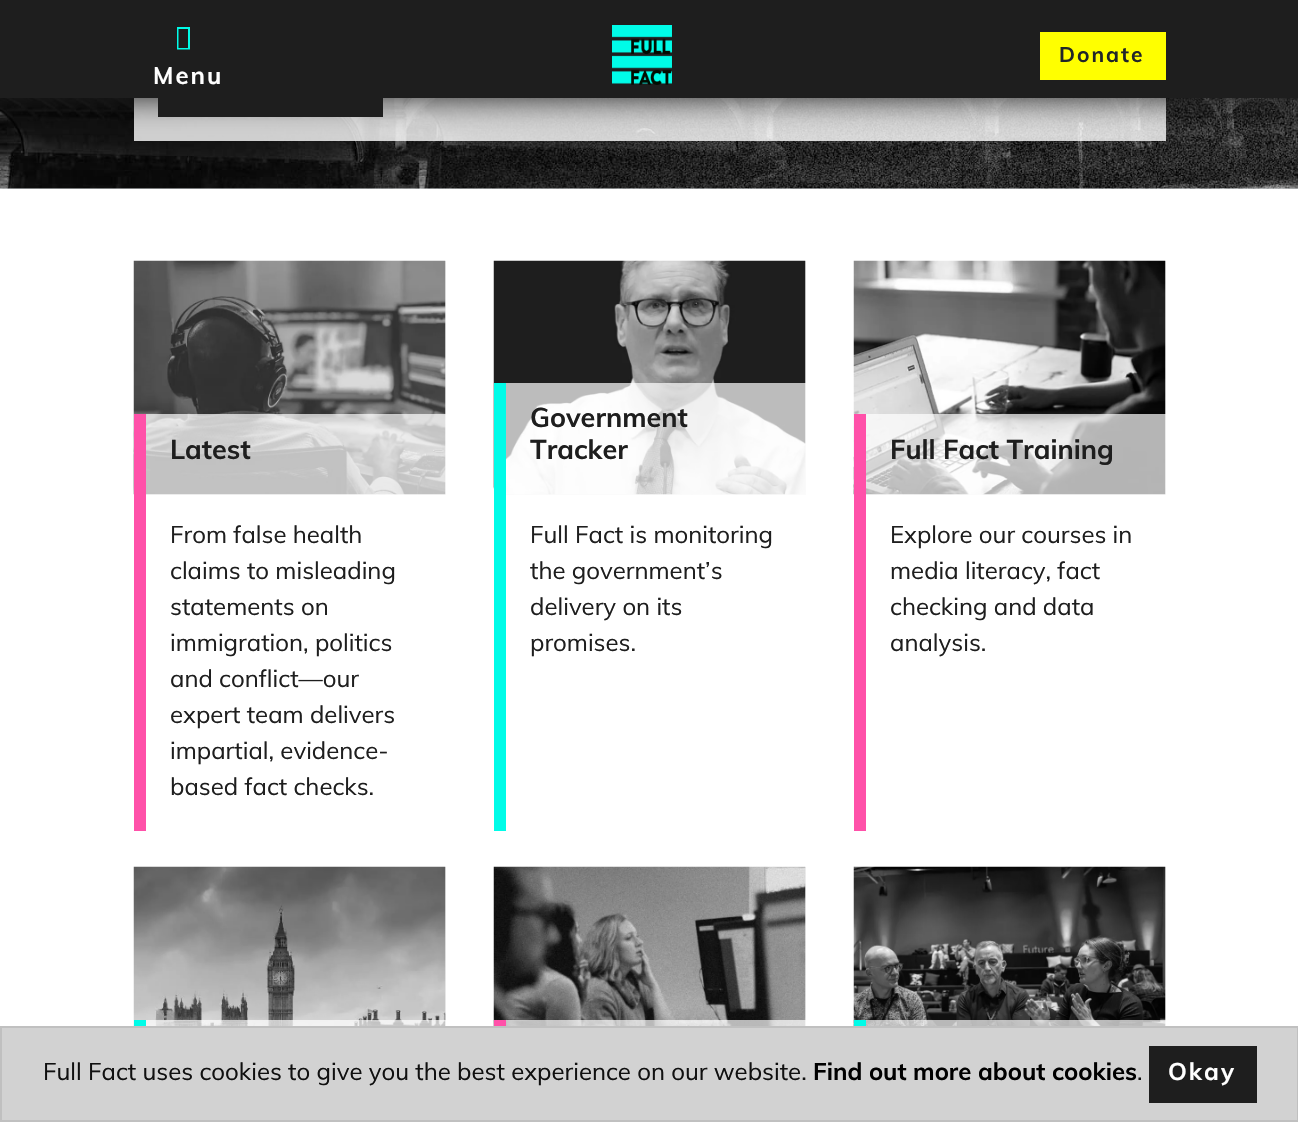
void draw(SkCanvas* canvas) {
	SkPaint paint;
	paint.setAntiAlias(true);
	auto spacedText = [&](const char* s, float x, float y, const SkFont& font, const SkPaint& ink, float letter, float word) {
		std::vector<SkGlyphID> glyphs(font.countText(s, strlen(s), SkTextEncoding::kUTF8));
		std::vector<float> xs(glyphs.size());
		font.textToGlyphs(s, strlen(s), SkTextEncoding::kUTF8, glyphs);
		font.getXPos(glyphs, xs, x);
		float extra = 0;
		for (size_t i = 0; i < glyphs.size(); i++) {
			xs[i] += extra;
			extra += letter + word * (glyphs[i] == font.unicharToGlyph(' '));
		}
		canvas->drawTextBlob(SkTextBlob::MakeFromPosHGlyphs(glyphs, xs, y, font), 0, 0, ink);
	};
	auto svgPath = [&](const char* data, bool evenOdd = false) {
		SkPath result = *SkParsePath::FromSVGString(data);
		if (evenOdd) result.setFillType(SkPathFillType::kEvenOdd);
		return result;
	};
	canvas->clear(0xffffffff);
	paint.setColor(0xff1e1e1e);
	canvas->drawRect(SkRect::MakeXYWH(0, 0, 1298, 98), paint);
	paint.setColor(0xffe9ecef);
	canvas->drawRect(SkRect::MakeXYWH(0, 188, 1298, 1), paint);
	canvas->drawImageRect(SkImages::DeferredFromEncodedData(SkData::MakeFromFileName("img2.png")), SkRect::MakeXYWH(0, 98, 1298, 91), SkSamplingOptions());
	paint.setColor(0xccffffff);
	canvas->drawRect(SkRect::MakeXYWH(134, 98, 1032, 43), paint);
	paint.setColor(0xff1e1e1e);
	canvas->drawRect(SkRect::MakeXYWH(158, 98, 225, 19), paint);
	canvas->save();
	canvas->clipPath(svgPath("M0 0H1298V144H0ZM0 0H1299V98H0Z", true), true);
	paint.setMaskFilter(SkMaskFilter::MakeBlur(kNormal_SkBlurStyle, 15));
	canvas->drawRect(SkRect::MakeXYWH(-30, -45, 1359, 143), paint);
	paint.setMaskFilter(nullptr);
	canvas->restore();
	canvas->drawImageRect(SkImages::DeferredFromEncodedData(SkData::MakeFromFileName("img1.png")), SkRect::MakeXYWH(612, 25, 60, 60), SkSamplingOptions());
	paint.setColor(0xffffff00);
	canvas->drawRect(SkRect::MakeXYWH(1040, 32, 126, 48), paint);
	SkFont f1(fontMgr->matchFamilyStyle("Muli", SkFontStyle::Bold()), 21);
	f1.setSubpixel(true);
	paint.setColor(0xff212529);
	spacedText("Donate", 1059, 62, f1, paint, 2, 0);
	paint.setColor(0xff00fce8);
	canvas->drawPath(svgPath("M177 49.5V27H190V49.5ZM178.5 48H188V29H178.5Z"), paint);
	SkFont f2(fontMgr->matchFamilyStyle("Muli", SkFontStyle::Bold()), 24);
	f2.setSubpixel(true);
	paint.setColor(0xffffffff);
	spacedText("Menu", 153, 84, f2, paint, 2, 0);
	paint.setColor(0xfff0f0f0);
	canvas->drawRect(SkRect::MakeXYWH(146, 261, 300, 234), paint);
	canvas->drawImageRect(SkImages::DeferredFromEncodedData(SkData::MakeFromFileName("img3.png")), SkRect::MakeXYWH(133, 260, 313, 235), SkSamplingOptions());
	paint.setColor(0xb3ffffff);
	canvas->drawRect(SkRect::MakeXYWH(146, 414, 300, 81), paint);
	paint.setColor(0xffff51a9);
	canvas->drawRect(SkRect::MakeXYWH(134, 414, 12, 81), paint);
	SkFont f3(fontMgr->matchFamilyStyle("Muli", SkFontStyle::Bold()), 27);
	f3.setSubpixel(true);
	paint.setColor(0xff1e1e1e);
	canvas->drawString("Latest", 170, 459, f3, paint);
	paint.setColor(0xffff51a9);
	canvas->drawRect(SkRect::MakeXYWH(134, 495, 12, 336), paint);
	SkFont f4(fontMgr->matchFamilyStyle("Muli", SkFontStyle::Normal()), 24);
	f4.setSubpixel(true);
	paint.setColor(0xff1e1e1e);
	canvas->drawString("From false health", 170, 543, f4, paint);
	canvas->drawString("claims to misleading", 170, 579, f4, paint);
	canvas->drawString("statements on", 170, 615, f4, paint);
	canvas->drawString("immigration, politics", 170, 651, f4, paint);
	canvas->drawString("and conflict—our", 170, 687, f4, paint);
	canvas->drawString("expert team delivers", 170, 723, f4, paint);
	canvas->drawString("impartial, evidence-", 170, 759, f4, paint);
	canvas->drawString("based fact checks.", 170, 795, f4, paint);
	paint.setColor(0xfff0f0f0);
	canvas->drawRect(SkRect::MakeXYWH(506, 261, 300, 234), paint);
	canvas->drawImageRect(SkImages::DeferredFromEncodedData(SkData::MakeFromFileName("img4.png")), SkRect::MakeXYWH(493, 260, 313, 235), SkSamplingOptions());
	paint.setColor(0xb3ffffff);
	canvas->drawRect(SkRect::MakeXYWH(506, 383, 300, 112), paint);
	paint.setColor(0xff00fce8);
	canvas->drawRect(SkRect::MakeXYWH(494, 383, 12, 112), paint);
	paint.setColor(0xff1e1e1e);
	canvas->drawString("Government", 530, 427, f3, paint);
	canvas->drawString("Tracker", 530, 459, f3, paint);
	paint.setColor(0xff00fce8);
	canvas->drawRect(SkRect::MakeXYWH(494, 495, 12, 336), paint);
	paint.setColor(0xff1e1e1e);
	canvas->drawString("Full Fact is monitoring", 530, 543, f4, paint);
	canvas->drawString("the government’s", 530, 579, f4, paint);
	canvas->drawString("delivery on its", 530, 615, f4, paint);
	canvas->drawString("promises.", 530, 651, f4, paint);
	paint.setColor(0xfff0f0f0);
	canvas->drawRect(SkRect::MakeXYWH(866, 261, 300, 234), paint);
	canvas->drawImageRect(SkImages::DeferredFromEncodedData(SkData::MakeFromFileName("img5.png")), SkRect::MakeXYWH(853, 260, 313, 235), SkSamplingOptions());
	paint.setColor(0xb3ffffff);
	canvas->drawRect(SkRect::MakeXYWH(866, 414, 300, 81), paint);
	paint.setColor(0xffff51a9);
	canvas->drawRect(SkRect::MakeXYWH(854, 414, 12, 81), paint);
	paint.setColor(0xff1e1e1e);
	canvas->drawString("Full Fact Training", 890, 459, f3, paint);
	paint.setColor(0xffff51a9);
	canvas->drawRect(SkRect::MakeXYWH(854, 495, 12, 336), paint);
	paint.setColor(0xff1e1e1e);
	canvas->drawString("Explore our courses in", 890, 543, f4, paint);
	canvas->drawString("media literacy, fact", 890, 579, f4, paint);
	canvas->drawString("checking and data", 890, 615, f4, paint);
	canvas->drawString("analysis.", 890, 651, f4, paint);
	paint.setColor(0xfff0f0f0);
	canvas->drawRect(SkRect::MakeXYWH(445, 867, 1, 159), paint);
	canvas->drawImageRect(SkImages::DeferredFromEncodedData(SkData::MakeFromFileName("img6.png")), SkRect::MakeXYWH(133, 866, 313, 160), SkSamplingOptions());
	paint.setColor(0xb3ffffff);
	canvas->drawRect(SkRect::MakeXYWH(146, 1020, 300, 6), paint);
	paint.setColor(0xff00fce8);
	canvas->drawRect(SkRect::MakeXYWH(134, 1020, 12, 6), paint);
	paint.setColor(0xfff0f0f0);
	canvas->drawRect(SkRect::MakeXYWH(805, 867, 1, 159), paint);
	canvas->drawImageRect(SkImages::DeferredFromEncodedData(SkData::MakeFromFileName("img7.png")), SkRect::MakeXYWH(493, 866, 313, 160), SkSamplingOptions());
	paint.setColor(0xb3ffffff);
	canvas->drawRect(SkRect::MakeXYWH(506, 1020, 300, 6), paint);
	paint.setColor(0xffff51a9);
	canvas->drawRect(SkRect::MakeXYWH(494, 1020, 12, 6), paint);
	paint.setColor(0xfff0f0f0);
	canvas->drawRect(SkRect::MakeXYWH(1165, 867, 1, 159), paint);
	canvas->drawImageRect(SkImages::DeferredFromEncodedData(SkData::MakeFromFileName("img8.png")), SkRect::MakeXYWH(853, 866, 313, 160), SkSamplingOptions());
	paint.setColor(0xb3ffffff);
	canvas->drawRect(SkRect::MakeXYWH(866, 1020, 300, 6), paint);
	paint.setColor(0xff00fce8);
	canvas->drawRect(SkRect::MakeXYWH(854, 1020, 12, 6), paint);
	paint.setColor(0xffd2d2d2);
	canvas->drawRect(SkRect::MakeXYWH(1, 1027, 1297, 94), paint);
	paint.setStroke(true);
	paint.setStrokeWidth(2);
	paint.setColor(0xffc0c0c0);
	canvas->drawRect(SkRect::MakeXYWH(1, 1027, 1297, 94), paint);
	paint.setStroke(false);
	paint.setColor(0xff101010);
	canvas->drawString("Full Fact uses cookies to give you the best experience on our website.", 43, 1080, f4, paint);
	paint.setColor(0xff000000);
	canvas->drawString("Find out more about cookies", 813, 1080, f2, paint);
	paint.setColor(0xff101010);
	canvas->drawString(".", 1137, 1080, f4, paint);
	paint.setColor(0xff1e1e1e);
	canvas->drawRect(SkRect::MakeXYWH(1149, 1046, 108, 57), paint);
	paint.setColor(0xffffffff);
	spacedText("Okay", 1168, 1080, f2, paint, 2, 0);
}
